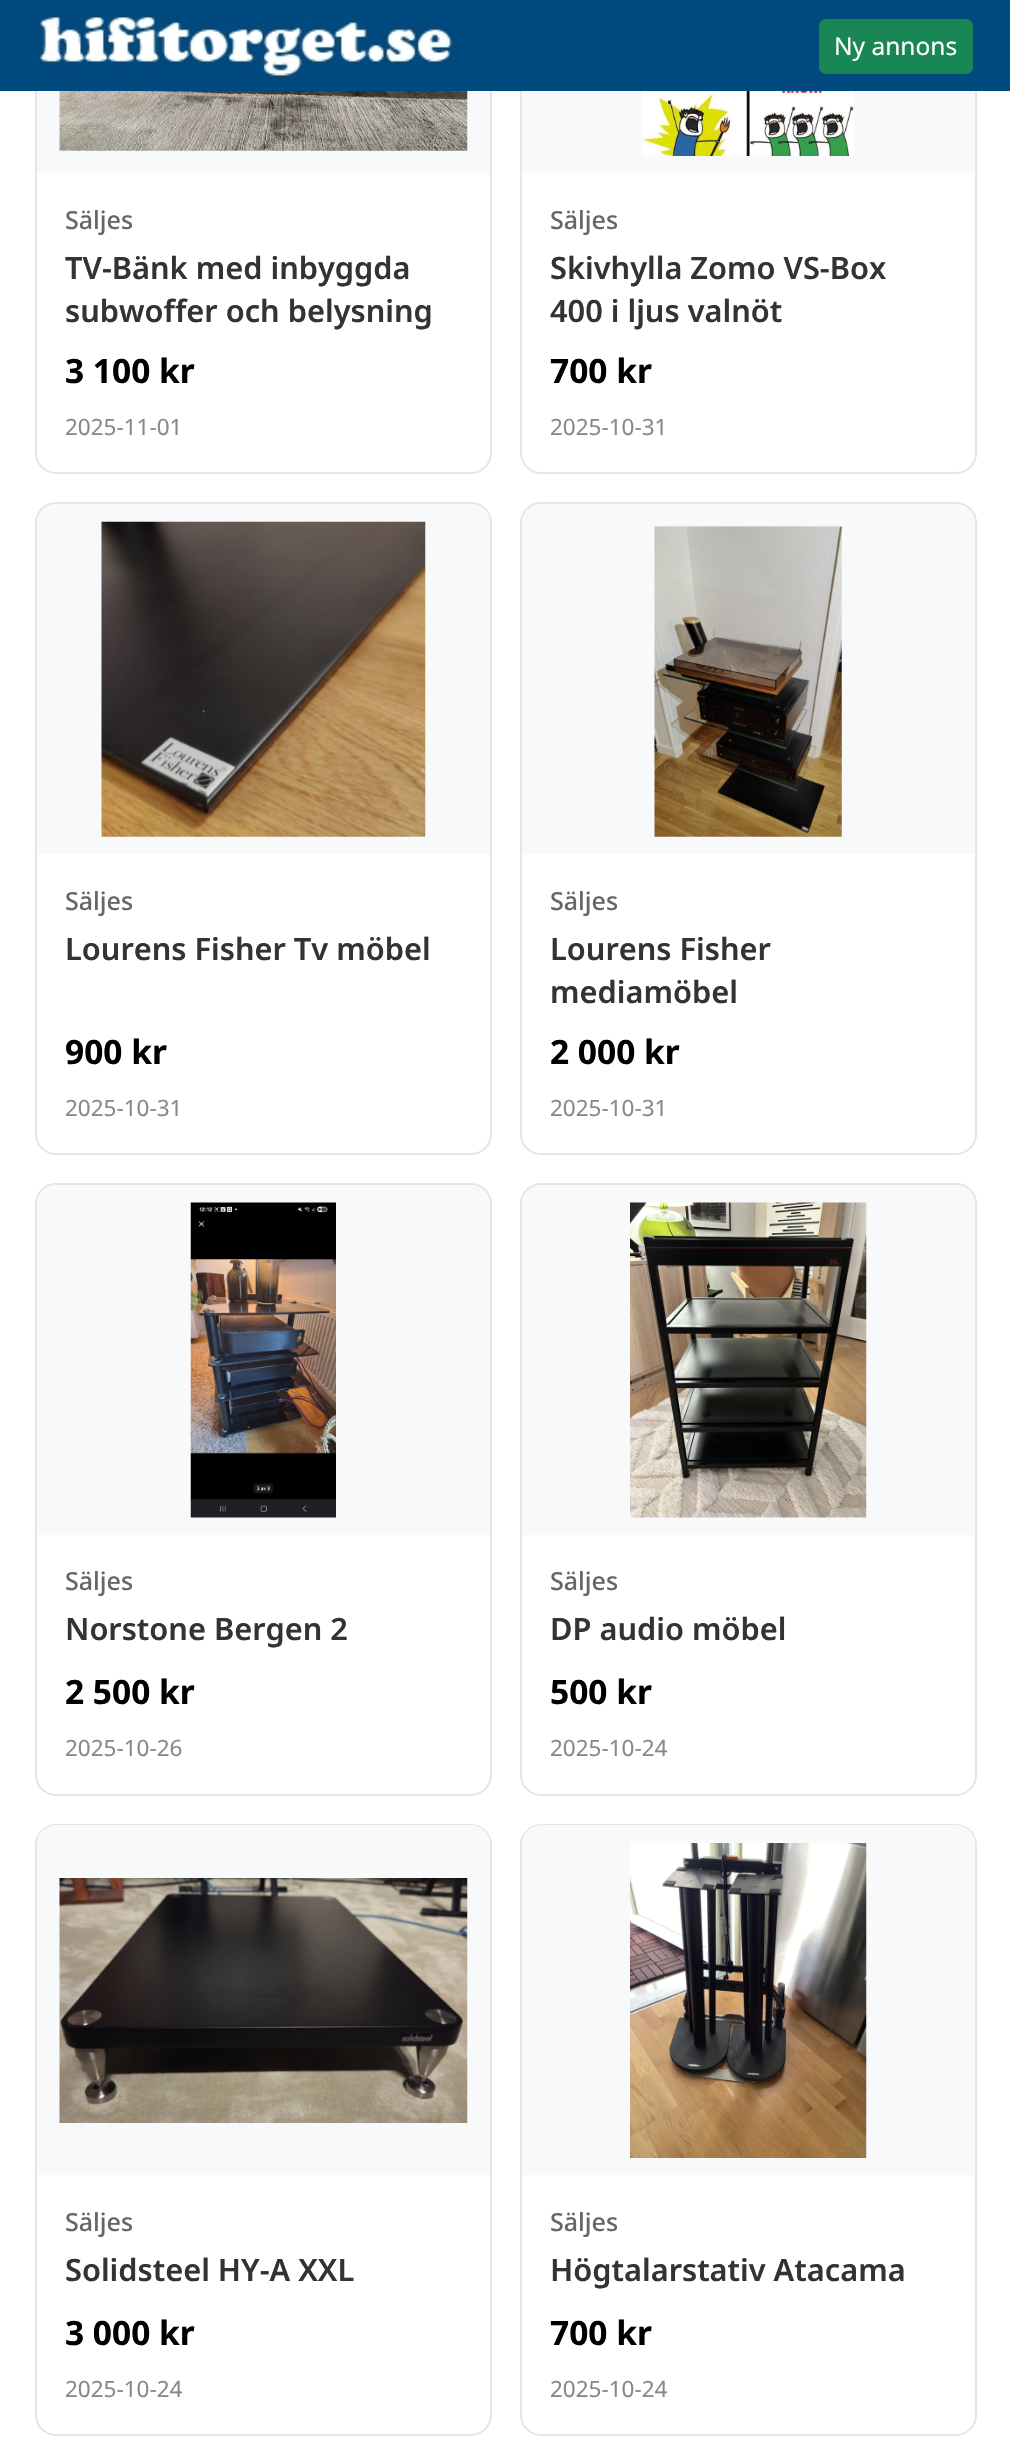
void draw(SkCanvas* canvas) {
	SkPaint paint;
	paint.setAntiAlias(true);
	auto svgPath = [&](const char* data, bool evenOdd = false) {
		SkPath result = *SkParsePath::FromSVGString(data);
		if (evenOdd) result.setFillType(SkPathFillType::kEvenOdd);
		return result;
	};
	canvas->clear(0xffffffff);
	paint.setStroke(true);
	paint.setStrokeWidth(2);
	paint.setColor(0xffe5e5e5);
	canvas->drawRoundRect(SkRect::MakeXYWH(36, -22, 455, 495), 20, 20, paint);
	canvas->drawRoundRect(SkRect::MakeXYWH(521, -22, 455, 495), 20, 20, paint);
	paint.setStroke(false);
	paint.setColor(0xff004a7f);
	canvas->drawRect(SkRect::MakeXYWH(0, 0, 1010, 91), paint);
	canvas->drawImageRect(SkImages::DeferredFromEncodedData(SkData::MakeFromFileName("img1.png")), SkRect::MakeXYWH(38, 15, 414, 62), SkSamplingOptions());
	paint.setColor(0xff198754);
	canvas->drawRoundRect(SkRect::MakeXYWH(820, 20, 152, 53), 6, 6, paint);
	paint.setStroke(true);
	canvas->drawRoundRect(SkRect::MakeXYWH(820, 20, 152, 53), 6, 6, paint);
	SkFont f1(fontMgr->matchFamilyStyle("Noto Sans", SkFontStyle::Normal()), 24.5);
	f1.setSubpixel(true);
	paint.setStroke(false);
	paint.setColor(0xffffffff);
	canvas->drawString("Ny annons", 834, 55, f1, paint);
	paint.setColor(0xfff8f9fa);
	canvas->drawRect(SkRect::MakeXYWH(37, 91, 453, 82), paint);
	canvas->drawImageRect(SkImages::DeferredFromEncodedData(SkData::MakeFromFileName("img2.png")), SkRect::MakeXYWH(59, 91, 409, 60), SkSamplingOptions());
	SkFont f2(fontMgr->matchFamilyStyle("Noto Sans", SkFontStyle(500, SkFontStyle::kNormal_Width, SkFontStyle::kUpright_Slant)), 25);
	f2.setSubpixel(true);
	paint.setColor(0xff666666);
	canvas->drawString("Säljes", 65, 229, f2, paint);
	SkFont f3(fontMgr->matchFamilyStyle("Noto Sans", SkFontStyle(600, SkFontStyle::kNormal_Width, SkFontStyle::kUpright_Slant)), 30.75);
	f3.setSubpixel(true);
	paint.setColor(0xff333333);
	canvas->drawString("TV-Bänk med inbyggda", 65, 279, f3, paint);
	canvas->drawString("subwoffer och belysning", 65, 322, f3, paint);
	SkFont f4(fontMgr->matchFamilyStyle("Noto Sans", SkFontStyle::Bold()), 33.5);
	f4.setSubpixel(true);
	paint.setColor(0xff000000);
	canvas->drawString("3 100 kr", 65, 383, f4, paint);
	SkFont f5(fontMgr->matchFamilyStyle("Noto Sans", SkFontStyle::Normal()), 22.5);
	f5.setSubpixel(true);
	paint.setColor(0xff888888);
	canvas->drawString("2025-11-01", 65, 435, f5, paint);
	paint.setColor(0xfff8f9fa);
	canvas->drawRect(SkRect::MakeXYWH(522, 91, 453, 82), paint);
	canvas->drawImageRect(SkImages::DeferredFromEncodedData(SkData::MakeFromFileName("img3.png")), SkRect::MakeXYWH(642, 91, 212, 65), SkSamplingOptions());
	paint.setColor(0xff666666);
	canvas->drawString("Säljes", 550, 229, f2, paint);
	paint.setColor(0xff333333);
	canvas->drawString("Skivhylla Zomo VS-Box", 550, 279, f3, paint);
	canvas->drawString("400 i ljus valnöt", 550, 322, f3, paint);
	paint.setColor(0xff000000);
	canvas->drawString("700 kr", 550, 383, f4, paint);
	paint.setColor(0xff888888);
	canvas->drawString("2025-10-31", 550, 435, f5, paint);
	paint.setStroke(true);
	paint.setColor(0xffe5e5e5);
	canvas->drawRoundRect(SkRect::MakeXYWH(36, 503, 455, 651), 20, 20, paint);
	paint.setStroke(false);
	paint.setColor(0xfff8f9fa);
	canvas->drawPath(svgPath("M56 504H471C481.5 504 490 512.5 490 523V854H37V523C37 512.5 45.5 504 56 504Z"), paint);
	canvas->drawImageRect(SkImages::DeferredFromEncodedData(SkData::MakeFromFileName("img4.png")), SkRect::MakeXYWH(101, 521, 325, 316), SkSamplingOptions());
	paint.setColor(0xff666666);
	canvas->drawString("Säljes", 65, 910, f2, paint);
	paint.setColor(0xff333333);
	canvas->drawString("Lourens Fisher Tv möbel", 65, 960, f3, paint);
	paint.setColor(0xff000000);
	canvas->drawString("900 kr", 65, 1064, f4, paint);
	paint.setColor(0xff888888);
	canvas->drawString("2025-10-31", 65, 1116, f5, paint);
	paint.setStroke(true);
	paint.setColor(0xffe5e5e5);
	canvas->drawRoundRect(SkRect::MakeXYWH(521, 503, 455, 651), 20, 20, paint);
	paint.setStroke(false);
	paint.setColor(0xfff8f9fa);
	canvas->drawPath(svgPath("M541 504H956C966.5 504 975 512.5 975 523V854H522V523C522 512.5 530.5 504 541 504Z"), paint);
	canvas->drawImageRect(SkImages::DeferredFromEncodedData(SkData::MakeFromFileName("img5.png")), SkRect::MakeXYWH(654, 525, 188, 312), SkSamplingOptions());
	paint.setColor(0xff666666);
	canvas->drawString("Säljes", 550, 910, f2, paint);
	paint.setColor(0xff333333);
	canvas->drawString("Lourens Fisher", 550, 960, f3, paint);
	canvas->drawString("mediamöbel", 550, 1003, f3, paint);
	paint.setColor(0xff000000);
	canvas->drawString("2 000 kr", 550, 1064, f4, paint);
	paint.setColor(0xff888888);
	canvas->drawString("2025-10-31", 550, 1116, f5, paint);
	paint.setStroke(true);
	paint.setColor(0xffe5e5e5);
	canvas->drawRoundRect(SkRect::MakeXYWH(36, 1184, 455, 611), 20, 20, paint);
	paint.setStroke(false);
	paint.setColor(0xfff8f9fa);
	canvas->drawPath(svgPath("M56 1185H471C481.5 1185 490 1193.5 490 1204V1535H37V1204C37 1193.5 45.5 1185 56 1185Z"), paint);
	canvas->drawImageRect(SkImages::DeferredFromEncodedData(SkData::MakeFromFileName("img6.png")), SkRect::MakeXYWH(190, 1202, 146, 316), SkSamplingOptions());
	paint.setColor(0xff666666);
	canvas->drawString("Säljes", 65, 1590, f2, paint);
	paint.setColor(0xff333333);
	canvas->drawString("Norstone Bergen 2", 65, 1640, f3, paint);
	paint.setColor(0xff000000);
	canvas->drawString("2 500 kr", 65, 1704, f4, paint);
	paint.setColor(0xff888888);
	canvas->drawString("2025-10-26", 65, 1756, f5, paint);
	paint.setStroke(true);
	paint.setColor(0xffe5e5e5);
	canvas->drawRoundRect(SkRect::MakeXYWH(521, 1184, 455, 611), 20, 20, paint);
	paint.setStroke(false);
	paint.setColor(0xfff8f9fa);
	canvas->drawPath(svgPath("M541 1185H956C966.5 1185 975 1193.5 975 1204V1535H522V1204C522 1193.5 530.5 1185 541 1185Z"), paint);
	canvas->drawImageRect(SkImages::DeferredFromEncodedData(SkData::MakeFromFileName("img7.png")), SkRect::MakeXYWH(630, 1202, 237, 316), SkSamplingOptions());
	paint.setColor(0xff666666);
	canvas->drawString("Säljes", 550, 1590, f2, paint);
	paint.setColor(0xff333333);
	canvas->drawString("DP audio möbel", 550, 1640, f3, paint);
	paint.setColor(0xff000000);
	canvas->drawString("500 kr", 550, 1704, f4, paint);
	paint.setColor(0xff888888);
	canvas->drawString("2025-10-24", 550, 1756, f5, paint);
	paint.setStroke(true);
	paint.setColor(0xffe5e5e5);
	canvas->drawRoundRect(SkRect::MakeXYWH(36, 1825, 455, 610), 20, 20, paint);
	paint.setStroke(false);
	paint.setColor(0xfff8f9fa);
	canvas->drawPath(svgPath("M56 1825H471C481.5 1825 490 1833.5 490 1844V2175H37V1844C37 1833.5 45.5 1825 56 1825Z"), paint);
	canvas->drawImageRect(SkImages::DeferredFromEncodedData(SkData::MakeFromFileName("img8.png")), SkRect::MakeXYWH(59, 1878, 409, 245), SkSamplingOptions());
	paint.setColor(0xff666666);
	canvas->drawString("Säljes", 65, 2231, f2, paint);
	paint.setColor(0xff333333);
	canvas->drawString("Solidsteel HY-A XXL", 65, 2281, f3, paint);
	paint.setColor(0xff000000);
	canvas->drawString("3 000 kr", 65, 2345, f4, paint);
	paint.setColor(0xff888888);
	canvas->drawString("2025-10-24", 65, 2397, f5, paint);
	paint.setStroke(true);
	paint.setColor(0xffe5e5e5);
	canvas->drawRoundRect(SkRect::MakeXYWH(521, 1825, 455, 610), 20, 20, paint);
	paint.setStroke(false);
	paint.setColor(0xfff8f9fa);
	canvas->drawPath(svgPath("M541 1825H956C966.5 1825 975 1833.5 975 1844V2175H522V1844C522 1833.5 530.5 1825 541 1825Z"), paint);
	canvas->drawImageRect(SkImages::DeferredFromEncodedData(SkData::MakeFromFileName("img9.png")), SkRect::MakeXYWH(630, 1843, 237, 315), SkSamplingOptions());
	paint.setColor(0xff666666);
	canvas->drawString("Säljes", 550, 2231, f2, paint);
	paint.setColor(0xff333333);
	canvas->drawString("Högtalarstativ Atacama", 550, 2281, f3, paint);
	paint.setColor(0xff000000);
	canvas->drawString("700 kr", 550, 2345, f4, paint);
	paint.setColor(0xff888888);
	canvas->drawString("2025-10-24", 550, 2397, f5, paint);
}
